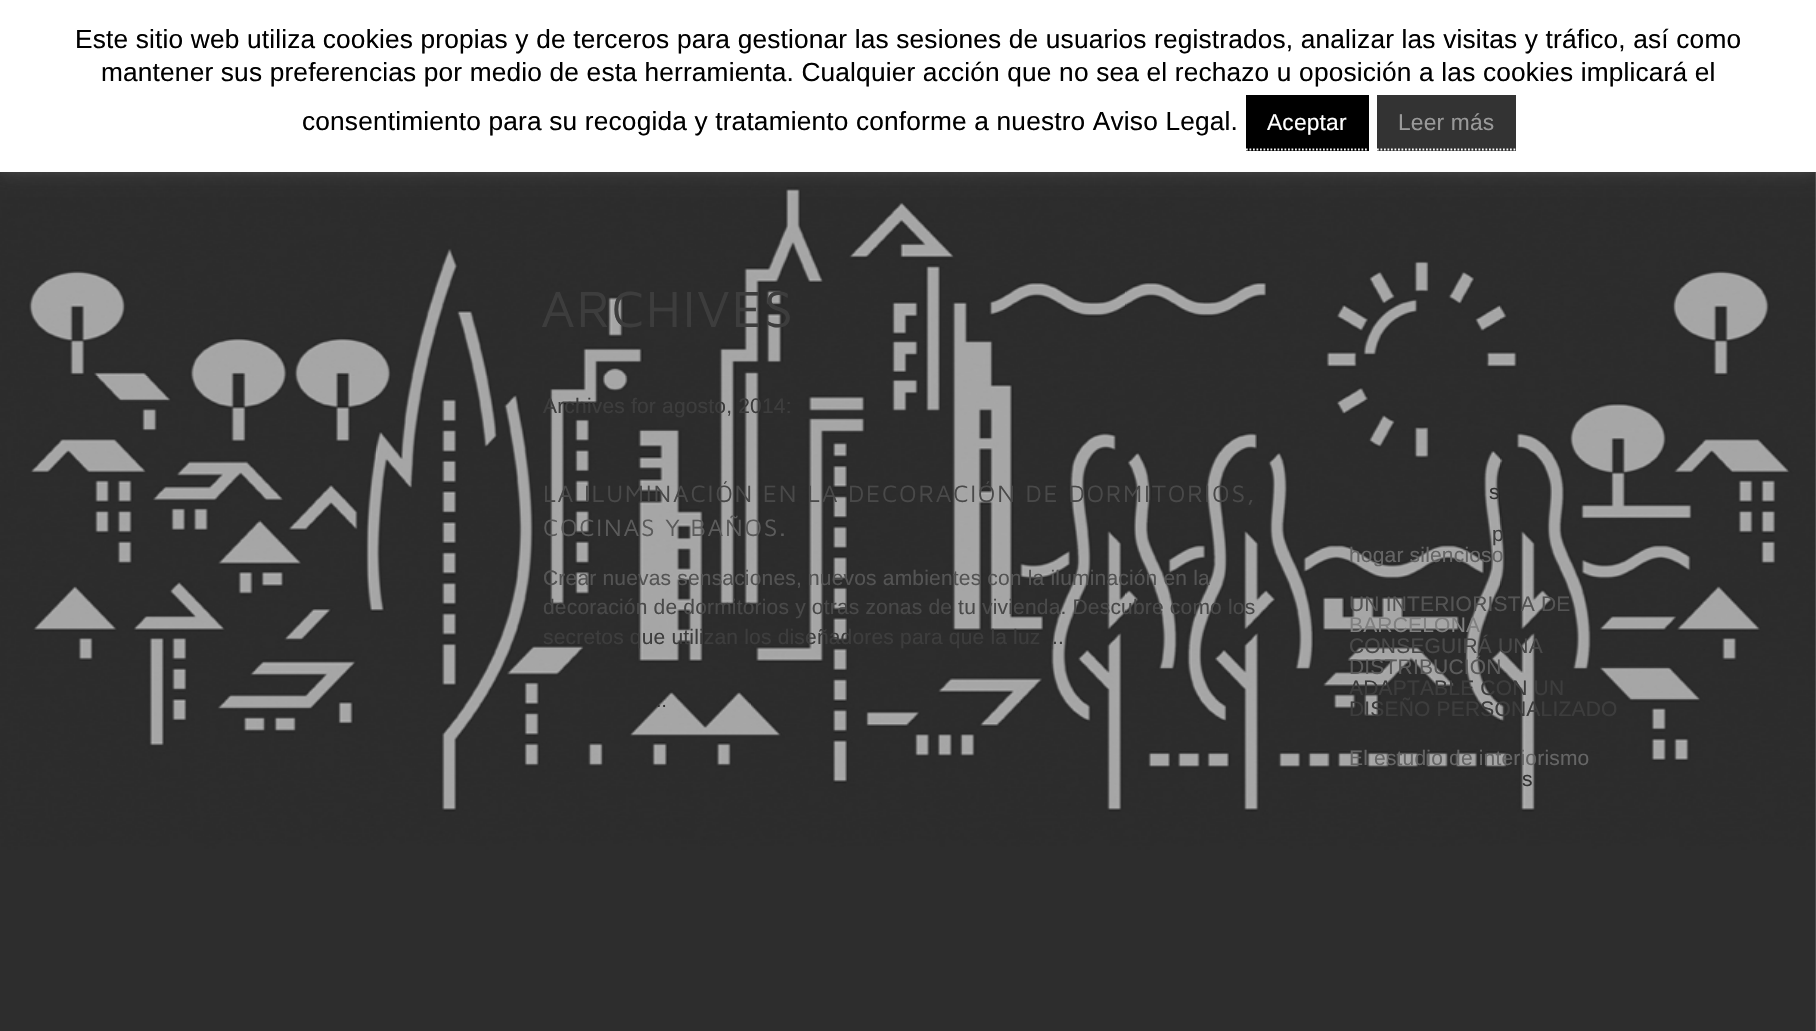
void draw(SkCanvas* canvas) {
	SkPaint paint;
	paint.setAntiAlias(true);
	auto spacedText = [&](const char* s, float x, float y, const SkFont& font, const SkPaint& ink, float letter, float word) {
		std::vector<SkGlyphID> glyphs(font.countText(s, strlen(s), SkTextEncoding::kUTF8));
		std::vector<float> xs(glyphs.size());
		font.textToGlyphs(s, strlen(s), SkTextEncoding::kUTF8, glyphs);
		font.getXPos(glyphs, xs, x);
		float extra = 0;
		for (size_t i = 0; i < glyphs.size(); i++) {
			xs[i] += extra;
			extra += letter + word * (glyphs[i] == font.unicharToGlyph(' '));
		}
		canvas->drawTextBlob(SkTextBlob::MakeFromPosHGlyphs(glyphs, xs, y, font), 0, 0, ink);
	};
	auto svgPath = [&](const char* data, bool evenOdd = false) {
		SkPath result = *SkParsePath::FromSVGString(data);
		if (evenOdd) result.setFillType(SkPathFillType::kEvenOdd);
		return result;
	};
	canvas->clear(0xffffffff);
	canvas->drawImageRect(SkImages::DeferredFromEncodedData(SkData::MakeFromFileName("img1.png")), SkRect::MakeXYWH(0, 172, 1816, 859), SkSamplingOptions());
	paint.setColor(0x4dacabab);
	paint.setMaskFilter(SkMaskFilter::MakeBlur(kNormal_SkBlurStyle, 9));
	canvas->drawRect(SkRect::MakeXYWH(0, -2, 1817, 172), paint);
	paint.setMaskFilter(nullptr);
	paint.setColor(0xffffffff);
	canvas->drawRect(SkRect::MakeXYWH(0, 0, 1816, 172), paint);
	SkFont f1(fontMgr->matchFamilyStyle("Liberation Sans", SkFontStyle::Normal()), 26.25);
	f1.setSubpixel(true);
	paint.setColor(0xff000000);
	spacedText("Este sitio web utiliza cookies propias y de terceros para gestionar las sesiones de usuarios registrados, analizar las visitas y tráfico, así como", 75, 48, f1, paint, 0.18, 0);
	spacedText("mantener sus preferencias por medio de esta herramienta. Cualquier acción que no sea el rechazo u oposición a las cookies implicará el", 101, 81, f1, paint, 0.18, 0);
	spacedText("consentimiento para su recogida y tratamiento conforme a nuestro Aviso Legal.", 302, 130, f1, paint, 0.18, 0);
	canvas->drawRect(SkRect::MakeXYWH(1246, 95, 123, 56), paint);
	paint.setStroke(true);
	paint.setStrokeWidth(1.8);
	paint.setColor(0xffffffff);
	paint.setPathEffect(SkDashPathEffect::Make({{1.75f, 1.75f}}, 0));
	canvas->drawPath(svgPath("M1246 149.5H1368.5"), paint);
	paint.setPathEffect(nullptr);
	SkFont f2(fontMgr->matchFamilyStyle("Liberation Sans", SkFontStyle::Normal()), 22.75);
	f2.setSubpixel(true);
	paint.setStroke(false);
	spacedText("Aceptar", 1267, 130, f2, paint, 0.18, 0);
	paint.setColor(0xff333333);
	canvas->drawRect(SkRect::MakeXYWH(1377, 95, 139, 56), paint);
	paint.setStroke(true);
	paint.setColor(0xffffffff);
	paint.setPathEffect(SkDashPathEffect::Make({{1.75f, 1.75f}}, 0));
	canvas->drawPath(svgPath("M1377 149.5H1515.5"), paint);
	paint.setPathEffect(nullptr);
	paint.setStroke(false);
	paint.setColor(0xff999999);
	spacedText("Leer más", 1398, 130, f2, paint, 0.18, 0);
	SkFont f3(fontMgr->matchFamilyStyle("Maven Pro", SkFontStyle::Normal()), 52.5);
	f3.setSubpixel(true);
	paint.setColor(0xff3d3d3d);
	spacedText("ARCHIVES", 541, 327, f3, paint, 1.75, 0);
	SkFont f4(fontMgr->matchFamilyStyle("Liberation Sans", SkFontStyle::Normal()), 21);
	f4.setSubpixel(true);
	spacedText("Archives for agosto, 2014:", 543, 413, f4, paint, 0.18, 0);
	SkFont f5(fontMgr->matchFamilyStyle("Maven Pro", SkFontStyle::Normal()), 24.5);
	f5.setSubpixel(true);
	paint.setColor(0xff494949);
	spacedText("LA ILUMINACIÓN EN LA DECORACIÓN DE DORMITORIOS,", 543, 502, f5, paint, 1.75, 0);
	paint.setColor(0xff5b5b5b);
	spacedText("COCINAS Y BAÑOS.", 543, 536, f5, paint, 1.75, 0);
	paint.setColor(0xff545454);
	spacedText("Crear nuevas sensaciones, nuevos ambientes con la iluminación en la", 543, 585, f4, paint, 0.18, 0);
	paint.setColor(0xff494949);
	spacedText("decoración de dormitorios y otras zonas de tu vivienda. Descubre como los", 543, 614, f4, paint, 0.18, 0);
	paint.setColor(0xff3d3d3d);
	spacedText("secretos que utilizan los diseñadores para que la luz", 543, 644, f4, paint, 0.18, 0);
	spacedText("..", 1052, 644, f4, paint, 0.18, 0);
	SkFont f6(fontMgr->matchFamilyStyle("Liberation Sans", SkFontStyle::Normal()), 19);
	f6.setSubpixel(true);
	paint.setColor(0xff323232);
	spacedText("..", 656, 707, f6, paint, 0.18, 0);
	spacedText("s", 1489, 499, f4, paint, 0.18, 0);
	paint.setColor(0xff3d3d3d);
	spacedText("p", 1492, 541, f4, paint, 0.18, 0);
	paint.setColor(0xff656565);
	spacedText("hogar silencioso", 1349, 562, f4, paint, 0.18, 0);
	paint.setColor(0xff545454);
	spacedText("UN INTERIORISTA DE", 1349, 611, f4, paint, 0.18, 0);
	paint.setColor(0xff808080);
	spacedText("BARCELONA", 1349, 632, f4, paint, 0.18, 0);
	paint.setColor(0xff494949);
	spacedText("CONSEGUIRÁ UNA", 1349, 653, f4, paint, 0.18, 0);
	paint.setColor(0xff5b5b5b);
	spacedText("DISTRIBUCIÓN", 1349, 674, f4, paint, 0.18, 0);
	paint.setColor(0xff3d3d3d);
	spacedText("ADAPTABLE CON UN", 1349, 695, f4, paint, 0.18, 0);
	spacedText("DISEÑO PERSONALIZADO", 1349, 716, f4, paint, 0.18, 0);
	paint.setColor(0xff656565);
	spacedText("El estudio de interiorismo", 1349, 765, f4, paint, 0.18, 0);
	paint.setColor(0xff323232);
	spacedText("s", 1522, 786, f4, paint, 0.18, 0);
}
